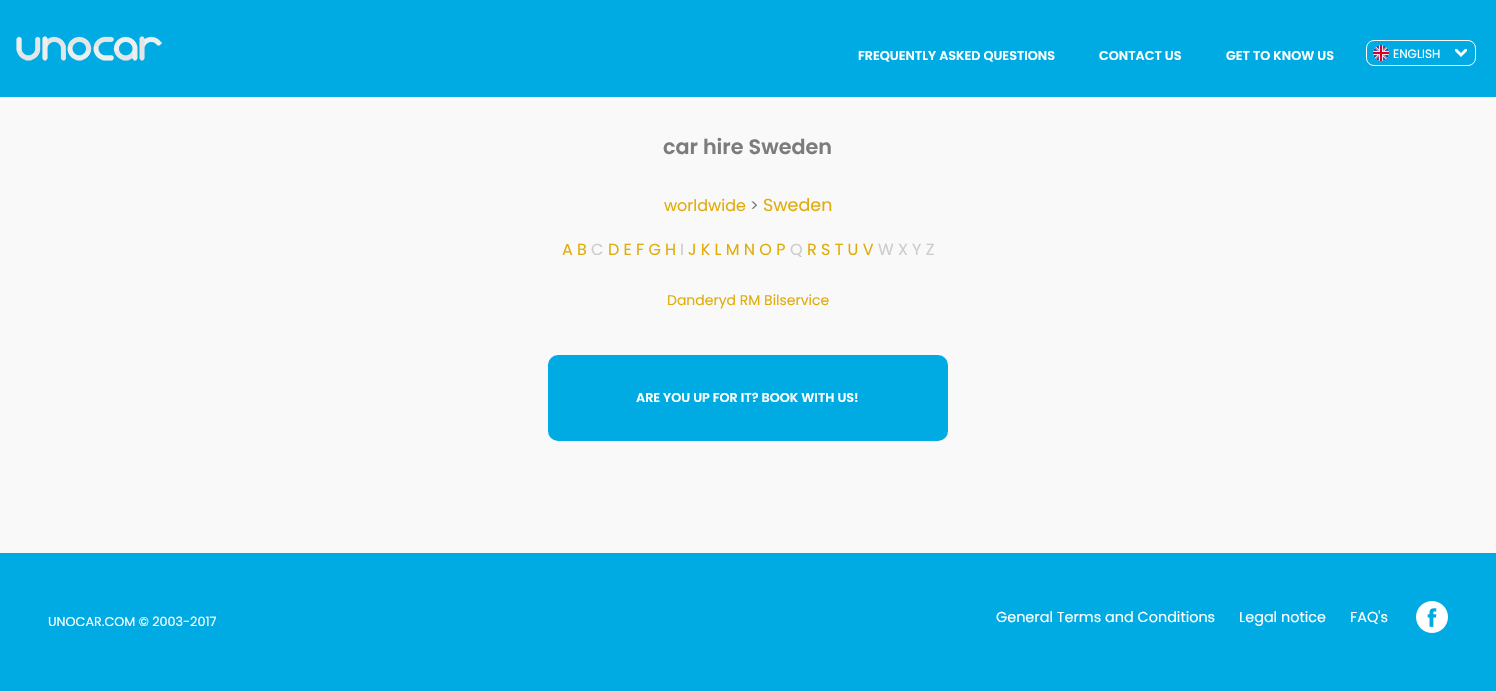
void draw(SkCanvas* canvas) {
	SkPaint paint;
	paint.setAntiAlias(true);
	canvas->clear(0xfff9f9f9);
	paint.setColor(0xff00abe4);
	canvas->drawRect(SkRect::MakeXYWH(0, 0, 1496, 97), paint);
	canvas->drawImageRect(SkImages::DeferredFromEncodedData(SkData::MakeFromFileName("img1.png")), SkRect::MakeXYWH(16, 36, 146, 25), SkSamplingOptions());
	SkFont f1(fontMgr->matchFamilyStyle("Poppins", SkFontStyle(600, SkFontStyle::kNormal_Width, SkFontStyle::kUpright_Slant)), 12.75);
	f1.setSubpixel(true);
	paint.setColor(0xffffffff);
	canvas->drawString("FREQUENTLY ASKED QUESTIONS", 858, 60, f1, paint);
	canvas->drawString("CONTACT US", 1099, 60, f1, paint);
	canvas->drawString("GET TO KNOW US", 1226, 60, f1, paint);
	canvas->drawImageRect(SkImages::DeferredFromEncodedData(SkData::MakeFromFileName("img2.png")), SkRect::MakeXYWH(1455, 49, 12, 8), SkSamplingOptions());
	paint.setStroke(true);
	paint.setStrokeWidth(1);
	canvas->drawRoundRect(SkRect::MakeXYWH(1366.5, 40.5, 109, 25), 7.5, 7.5, paint);
	canvas->drawImageRect(SkImages::DeferredFromEncodedData(SkData::MakeFromFileName("img3.png")), SkRect::MakeXYWH(1373, 45, 16, 16), SkSamplingOptions());
	SkFont f2(fontMgr->matchFamilyStyle("Poppins", SkFontStyle::Normal()), 12);
	f2.setSubpixel(true);
	paint.setStroke(false);
	canvas->drawString("ENGLISH", 1393, 58, f2, paint);
	SkFont f3(fontMgr->matchFamilyStyle("Poppins", SkFontStyle(600, SkFontStyle::kNormal_Width, SkFontStyle::kUpright_Slant)), 20.75);
	f3.setSubpixel(true);
	paint.setColor(0xff7c7c7c);
	canvas->drawString("car hire Sweden", 663, 154, f3, paint);
	SkFont f4(fontMgr->matchFamilyStyle("Poppins", SkFontStyle::Normal()), 16);
	f4.setSubpixel(true);
	paint.setColor(0xffe1ac0a);
	canvas->drawString("worldwide", 664, 211, f4, paint);
	paint.setColor(0xff7c7c7c);
	canvas->drawString(">", 750, 211, f4, paint);
	SkFont f5(fontMgr->matchFamilyStyle("Poppins", SkFontStyle::Normal()), 17.5);
	f5.setSubpixel(true);
	paint.setColor(0xffe1ac0a);
	canvas->drawString("Sweden", 763, 211, f5, paint);
	canvas->drawString("A B", 562, 255, f4, paint);
	paint.setColor(0xffcccccc);
	canvas->drawString("C", 591, 255, f4, paint);
	paint.setColor(0xffe1ac0a);
	canvas->drawString("D E F G H", 608, 255, f4, paint);
	paint.setColor(0xffcccccc);
	canvas->drawString("I", 680, 255, f4, paint);
	paint.setColor(0xffe1ac0a);
	canvas->drawString("J K L M N O P", 688, 255, f4, paint);
	paint.setColor(0xffcccccc);
	canvas->drawString("Q", 790, 255, f4, paint);
	paint.setColor(0xffe1ac0a);
	canvas->drawString("R S T U V", 807, 255, f4, paint);
	paint.setColor(0xffcccccc);
	canvas->drawString("W X Y Z", 878, 255, f4, paint);
	SkFont f6(fontMgr->matchFamilyStyle("Poppins", SkFontStyle::Normal()), 14);
	f6.setSubpixel(true);
	paint.setColor(0xffe1ac0a);
	canvas->drawString("Danderyd RM Bilservice", 667, 305, f6, paint);
	paint.setColor(0xff00abe4);
	canvas->drawRoundRect(SkRect::MakeXYWH(548, 355, 400, 86), 10, 10, paint);
	paint.setColor(0xffffffff);
	canvas->drawString("ARE YOU UP FOR IT? BOOK WITH US!", 636, 402, f1, paint);
	paint.setColor(0xff00abe4);
	canvas->drawRect(SkRect::MakeXYWH(0, 553, 1496, 138), paint);
	SkFont f7(fontMgr->matchFamilyStyle("Poppins", SkFontStyle::Normal()), 12.75);
	f7.setSubpixel(true);
	paint.setColor(0xffffffff);
	canvas->drawString("UNOCAR.COM © 2003-2017", 48, 626, f7, paint);
	SkFont f8(fontMgr->matchFamilyStyle("Poppins", SkFontStyle::Normal()), 14.4);
	f8.setSubpixel(true);
	canvas->drawString("General Terms and Conditions", 996, 622, f8, paint);
	canvas->drawString("Legal notice", 1239, 622, f8, paint);
	canvas->drawString("FAQ's", 1350, 622, f8, paint);
	canvas->drawImageRect(SkImages::DeferredFromEncodedData(SkData::MakeFromFileName("img4.png")), SkRect::MakeXYWH(1416, 601, 32, 32), SkSamplingOptions());
}
